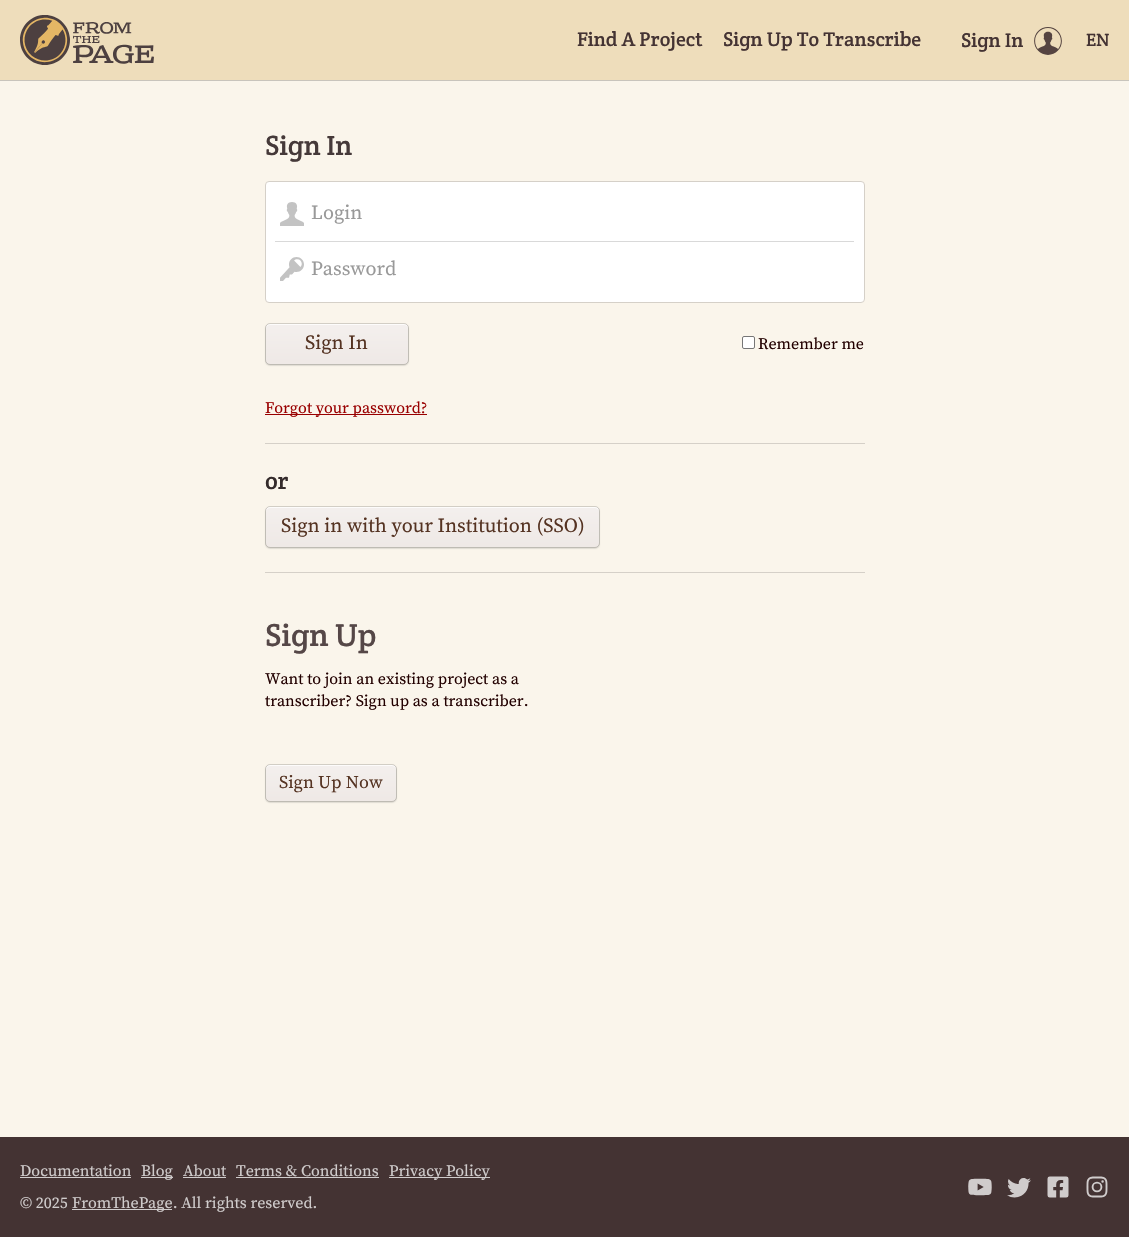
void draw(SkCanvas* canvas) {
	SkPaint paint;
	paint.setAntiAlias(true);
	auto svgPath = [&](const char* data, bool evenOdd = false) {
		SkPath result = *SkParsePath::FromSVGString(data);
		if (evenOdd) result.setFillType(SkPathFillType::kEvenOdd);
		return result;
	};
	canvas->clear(0xfffaf5eb);
	paint.setColor(0xffc8c4bc);
	canvas->drawRect(SkRect::MakeXYWH(0, 80, 1129, 1), paint);
	paint.setColor(0xffeeddbb);
	canvas->drawRect(SkRect::MakeXYWH(0, 0, 1129, 80), paint);
	canvas->drawImageRect(SkImages::DeferredFromEncodedData(SkData::MakeFromFileName("img1.png")), SkRect::MakeXYWH(20, 15, 134, 50), SkSamplingOptions());
	SkFont f1(fontMgr->matchFamilyStyle("Crete Round", SkFontStyle::Normal()), 20);
	f1.setSubpixel(true);
	paint.setColor(0xff443333);
	canvas->drawString("Find A Project", 577, 46, f1, paint);
	canvas->drawString("Sign Up To Transcribe", 723, 46, f1, paint);
	canvas->drawString("Sign In", 961, 47, f1, paint);
	canvas->drawImageRect(SkImages::DeferredFromEncodedData(SkData::MakeFromFileName("img2.png")), SkRect::MakeXYWH(1034, 27, 28, 28), SkSamplingOptions());
	SkFont f2(fontMgr->matchFamilyStyle("Crete Round", SkFontStyle::Normal()), 18);
	f2.setSubpixel(true);
	canvas->drawString("EN", 1086, 46, f2, paint);
	SkFont f3(fontMgr->matchFamilyStyle("Crete Round", SkFontStyle::Normal()), 28);
	f3.setSubpixel(true);
	paint.setColor(0xff453939);
	canvas->drawString("Sign In", 265, 155, f3, paint);
	paint.setColor(0xffffffff);
	canvas->drawRoundRect(SkRect::MakeXYWH(265.5, 181.5, 599, 121), 3.5, 3.5, paint);
	paint.setStroke(true);
	paint.setStrokeWidth(1);
	paint.setColor(0xffd5d0c8);
	canvas->drawRoundRect(SkRect::MakeXYWH(265.5, 181.5, 599, 121), 3.5, 3.5, paint);
	canvas->drawImageRect(SkImages::DeferredFromEncodedData(SkData::MakeFromFileName("img3.png")), SkRect::MakeXYWH(280, 202, 24, 24), SkSamplingOptions());
	SkFont f4(fontMgr->matchFamilyStyle("Source Serif Pro", SkFontStyle::Normal()), 20);
	f4.setSubpixel(true);
	paint.setStroke(false);
	paint.setColor(0xff999999);
	canvas->drawString("Login", 311, 219, f4, paint);
	paint.setColor(0xffd9d9d9);
	canvas->drawRect(SkRect::MakeXYWH(275, 241, 579, 1), paint);
	canvas->drawImageRect(SkImages::DeferredFromEncodedData(SkData::MakeFromFileName("img4.png")), SkRect::MakeXYWH(280, 257, 24, 24), SkSamplingOptions());
	paint.setColor(0xff999999);
	canvas->drawString("Password", 311, 275, f4, paint);
	paint.setColor(0x1a000000);
	paint.setMaskFilter(SkMaskFilter::MakeBlur(kNormal_SkBlurStyle, 0.5));
	canvas->drawRoundRect(SkRect::MakeXYWH(265, 324, 144, 42), 5, 5, paint);
	paint.setMaskFilter(nullptr);
	paint.setColor(0xffefe9e6);
	canvas->drawRoundRect(SkRect::MakeXYWH(266, 324, 142, 40), 4, 4, paint);
	{
		const SkColor colors[] = {0x4dffffff, 0x00ffffff};
		const float stops[] = {0, 1};
		const SkPoint ends[] = {{337, 324}, {337, 364}};
		paint.setShader(SkGradientShader::MakeLinear(ends, colors, stops, 2, SkTileMode::kClamp));
		paint.setAlpha(255);
	}
	canvas->drawRoundRect(SkRect::MakeXYWH(266, 324, 142, 40), 4, 4, paint);
	paint.setShader(nullptr);
	paint.setColor(0xfffdfcfb);
	canvas->drawPath(svgPath("M270 325H404C406 325 408 327 408 329V328C408 326 406 324 404 324H270C268 324 266 326 266 328V329C266 327 268 325 270 325Z"), paint);
	paint.setStroke(true);
	paint.setColor(0x26000000);
	canvas->drawRoundRect(SkRect::MakeXYWH(265.5, 323.5, 143, 41), 4.5, 4.5, paint);
	paint.setStroke(false);
	paint.setColor(0xff553322);
	canvas->drawString("Sign In", 305, 349, f4, paint);
	paint.setColor(0xffffffff);
	canvas->drawRoundRect(SkRect::MakeXYWH(742.5, 336.5, 12, 12), 1.5, 1.5, paint);
	paint.setStroke(true);
	paint.setColor(0xff767676);
	canvas->drawRoundRect(SkRect::MakeXYWH(742.5, 336.5, 12, 12), 1.5, 1.5, paint);
	SkFont f5(fontMgr->matchFamilyStyle("Source Serif Pro", SkFontStyle::Normal()), 16);
	f5.setSubpixel(true);
	paint.setStroke(false);
	paint.setColor(0xff220000);
	canvas->drawString("Remember me", 758, 349, f5, paint);
	paint.setColor(0xff990000);
	canvas->drawRect(SkRect::MakeXYWH(265, 414, 162, 1), paint);
	canvas->drawString("Forgot your password?", 265, 413, f5, paint);
	paint.setColor(0xffd5d0c8);
	canvas->drawRect(SkRect::MakeXYWH(265, 443, 600, 1), paint);
	SkFont f6(fontMgr->matchFamilyStyle("Crete Round", SkFontStyle::Normal()), 24);
	f6.setSubpixel(true);
	paint.setColor(0xff342b2b);
	canvas->drawString("or", 265, 489, f6, paint);
	paint.setColor(0x1a000000);
	paint.setMaskFilter(SkMaskFilter::MakeBlur(kNormal_SkBlurStyle, 0.5));
	canvas->drawRoundRect(SkRect::MakeXYWH(265, 507, 335, 42), 5, 5, paint);
	paint.setMaskFilter(nullptr);
	paint.setColor(0xffefe9e6);
	canvas->drawRoundRect(SkRect::MakeXYWH(266, 507, 333, 40), 4, 4, paint);
	{
		const SkColor colors[] = {0x4dffffff, 0x00ffffff};
		const float stops[] = {0, 1};
		const SkPoint ends[] = {{433, 507}, {433, 547}};
		paint.setShader(SkGradientShader::MakeLinear(ends, colors, stops, 2, SkTileMode::kClamp));
		paint.setAlpha(255);
	}
	canvas->drawRoundRect(SkRect::MakeXYWH(266, 507, 333, 40), 4, 4, paint);
	paint.setShader(nullptr);
	paint.setColor(0xfffdfcfb);
	canvas->drawPath(svgPath("M270 508H595C597 508 599 510 599 512C599 509 598 507 595 507H270C267 507 266 509 266 512C266 510 268 508 270 508Z"), paint);
	paint.setStroke(true);
	paint.setColor(0x26000000);
	canvas->drawRoundRect(SkRect::MakeXYWH(265.5, 506.5, 334, 41), 4.5, 4.5, paint);
	paint.setStroke(false);
	paint.setColor(0xff553322);
	canvas->drawString("Sign in with your Institution (SSO)", 281, 532, f4, paint);
	paint.setColor(0xffd5d0c8);
	canvas->drawRect(SkRect::MakeXYWH(265, 572, 600, 1), paint);
	SkFont f7(fontMgr->matchFamilyStyle("Crete Round", SkFontStyle::Normal()), 32);
	f7.setSubpixel(true);
	paint.setColor(0xff554747);
	canvas->drawString("Sign Up", 265, 646, f7, paint);
	paint.setColor(0xff220000);
	canvas->drawString("Want to join an existing project as a", 265, 684, f5, paint);
	canvas->drawString("transcriber? Sign up as a transcriber.", 265, 706, f5, paint);
	paint.setColor(0x1a000000);
	paint.setMaskFilter(SkMaskFilter::MakeBlur(kNormal_SkBlurStyle, 0.5));
	canvas->drawRoundRect(SkRect::MakeXYWH(265, 765, 132, 38), 5, 5, paint);
	paint.setMaskFilter(nullptr);
	paint.setColor(0xffefe9e6);
	canvas->drawRoundRect(SkRect::MakeXYWH(266, 765, 130, 36), 4, 4, paint);
	{
		const SkColor colors[] = {0x4dffffff, 0x00ffffff};
		const float stops[] = {0, 1};
		const SkPoint ends[] = {{331, 765}, {331, 801}};
		paint.setShader(SkGradientShader::MakeLinear(ends, colors, stops, 2, SkTileMode::kClamp));
		paint.setAlpha(255);
	}
	canvas->drawRoundRect(SkRect::MakeXYWH(266, 765, 130, 36), 4, 4, paint);
	paint.setShader(nullptr);
	paint.setColor(0xfffdfcfb);
	canvas->drawPath(svgPath("M270 766H392C394 766 396 768 396 770V769C396 767 394 765 392 765H270C268 765 266 767 266 769V770C266 768 268 766 270 766Z"), paint);
	paint.setStroke(true);
	paint.setColor(0x26000000);
	canvas->drawRoundRect(SkRect::MakeXYWH(265.5, 764.5, 131, 37), 4.5, 4.5, paint);
	SkFont f8(fontMgr->matchFamilyStyle("Source Serif Pro", SkFontStyle::Normal()), 18);
	f8.setSubpixel(true);
	paint.setStroke(false);
	paint.setColor(0xff553322);
	canvas->drawString("Sign Up Now", 279, 788, f8, paint);
	paint.setColor(0xff443333);
	canvas->drawRect(SkRect::MakeXYWH(0, 1137, 1129, 100), paint);
	paint.setColor(0xffd0cccc);
	canvas->drawString("Documentation", 20, 1176, f5, paint);
	canvas->drawRect(SkRect::MakeXYWH(20, 1177, 111, 1), paint);
	canvas->drawRect(SkRect::MakeXYWH(141, 1177, 32, 1), paint);
	canvas->drawString("Blog", 141, 1176, f5, paint);
	canvas->drawString("About", 183, 1176, f5, paint);
	canvas->drawRect(SkRect::MakeXYWH(183, 1177, 43, 1), paint);
	canvas->drawString("Terms & Conditions", 236, 1176, f5, paint);
	canvas->drawRect(SkRect::MakeXYWH(236, 1177, 143, 1), paint);
	canvas->drawRect(SkRect::MakeXYWH(389, 1177, 101, 1), paint);
	canvas->drawString("Privacy Policy", 389, 1176, f5, paint);
	canvas->drawString("© 2025", 20, 1208, f5, paint);
	canvas->drawRect(SkRect::MakeXYWH(72, 1209, 100, 1), paint);
	canvas->drawString("FromThePage. All rights reserved.", 72, 1208, f5, paint);
	canvas->drawImageRect(SkImages::DeferredFromEncodedData(SkData::MakeFromFileName("img5.png")), SkRect::MakeXYWH(968, 1178, 24, 18), SkSamplingOptions());
	canvas->drawImageRect(SkImages::DeferredFromEncodedData(SkData::MakeFromFileName("img6.png")), SkRect::MakeXYWH(1007, 1178, 24, 20), SkSamplingOptions());
	canvas->drawImageRect(SkImages::DeferredFromEncodedData(SkData::MakeFromFileName("img7.png")), SkRect::MakeXYWH(1047, 1176, 22, 22), SkSamplingOptions());
	canvas->drawImageRect(SkImages::DeferredFromEncodedData(SkData::MakeFromFileName("img8.png")), SkRect::MakeXYWH(1086, 1176, 22, 22), SkSamplingOptions());
}
